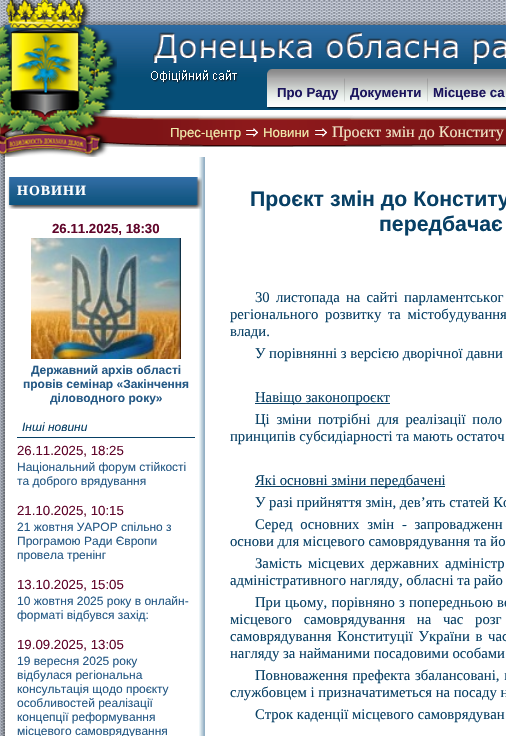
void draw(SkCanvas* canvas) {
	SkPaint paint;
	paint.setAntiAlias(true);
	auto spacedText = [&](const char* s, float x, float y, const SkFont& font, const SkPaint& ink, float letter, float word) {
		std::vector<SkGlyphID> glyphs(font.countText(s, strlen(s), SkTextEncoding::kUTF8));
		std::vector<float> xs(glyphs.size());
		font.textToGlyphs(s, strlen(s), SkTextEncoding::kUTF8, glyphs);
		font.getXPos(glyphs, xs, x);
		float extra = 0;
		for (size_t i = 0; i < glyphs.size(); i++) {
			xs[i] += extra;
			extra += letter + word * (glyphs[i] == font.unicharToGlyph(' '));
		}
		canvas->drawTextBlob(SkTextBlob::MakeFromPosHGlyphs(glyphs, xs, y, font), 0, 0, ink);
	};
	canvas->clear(0xffffffff);
	canvas->drawImageRect(SkImages::DeferredFromEncodedData(SkData::MakeFromFileName("img1.png")), SkRect::MakeXYWH(0, 0, 506, 736), SkSamplingOptions());
	canvas->drawImageRect(SkImages::DeferredFromEncodedData(SkData::MakeFromFileName("img2.png")), SkRect::MakeXYWH(0, 20, 5, 5), SkSamplingOptions());
	canvas->drawImageRect(SkImages::DeferredFromEncodedData(SkData::MakeFromFileName("img3.png")), SkRect::MakeXYWH(5, 20, 501, 5), SkSamplingOptions());
	canvas->drawImageRect(SkImages::DeferredFromEncodedData(SkData::MakeFromFileName("img4.png")), SkRect::MakeXYWH(0, 25, 5, 711), SkSamplingOptions());
	paint.setColor(0xffffffff);
	canvas->drawRect(SkRect::MakeXYWH(98, 142, 408, 5), paint);
	canvas->drawImageRect(SkImages::DeferredFromEncodedData(SkData::MakeFromFileName("img5.png")), SkRect::MakeXYWH(0, 25, 506, 122), SkSamplingOptions());
	canvas->drawRect(SkRect::MakeXYWH(5, 147, 501, 589), paint);
	canvas->drawImageRect(SkImages::DeferredFromEncodedData(SkData::MakeFromFileName("img6.png")), SkRect::MakeXYWH(0, 0, 117, 157), SkSamplingOptions());
	canvas->drawImageRect(SkImages::DeferredFromEncodedData(SkData::MakeFromFileName("img7.png")), SkRect::MakeXYWH(267, 69, 5, 40), SkSamplingOptions());
	canvas->drawImageRect(SkImages::DeferredFromEncodedData(SkData::MakeFromFileName("img8.png")), SkRect::MakeXYWH(272, 69, 72, 40), SkSamplingOptions());
	SkFont f1(fontMgr->matchFamilyStyle("Liberation Sans", SkFontStyle::Bold()), 13.25);
	f1.setSubpixel(true);
	paint.setColor(0xff1b155d);
	canvas->drawString("Про Раду", 277, 97, f1, paint);
	canvas->drawImageRect(SkImages::DeferredFromEncodedData(SkData::MakeFromFileName("img9.png")), SkRect::MakeXYWH(344, 69, 1, 40), SkSamplingOptions());
	canvas->drawImageRect(SkImages::DeferredFromEncodedData(SkData::MakeFromFileName("img10.png")), SkRect::MakeXYWH(345, 69, 82, 40), SkSamplingOptions());
	canvas->drawString("Документи", 350, 97, f1, paint);
	canvas->drawImageRect(SkImages::DeferredFromEncodedData(SkData::MakeFromFileName("img9.png")), SkRect::MakeXYWH(427, 69, 1, 40), SkSamplingOptions());
	canvas->drawImageRect(SkImages::DeferredFromEncodedData(SkData::MakeFromFileName("img11.png")), SkRect::MakeXYWH(428, 69, 78, 40), SkSamplingOptions());
	canvas->drawString("Місцеве са", 433, 97, f1, paint);
	SkFont f2(fontMgr->matchFamilyStyle("Liberation Sans", SkFontStyle::Normal()), 13.25);
	f2.setSubpixel(true);
	paint.setColor(0xfff1ecac);
	canvas->drawString("Прес-центр", 170, 137, f2, paint);
	canvas->drawImageRect(SkImages::DeferredFromEncodedData(SkData::MakeFromFileName("img12.png")), SkRect::MakeXYWH(246, 128, 12, 9), SkSamplingOptions());
	canvas->drawString("Новини", 263, 137, f2, paint);
	canvas->drawImageRect(SkImages::DeferredFromEncodedData(SkData::MakeFromFileName("img13.png")), SkRect::MakeXYWH(315, 128, 12, 9), SkSamplingOptions());
	SkFont f3(fontMgr->matchFamilyStyle("Liberation Serif", SkFontStyle::Normal()), 16);
	f3.setSubpixel(true);
	paint.setColor(0xfff1e4c5);
	canvas->drawString("Проєкт змін до Конститу", 332, 137, f3, paint);
	canvas->drawImageRect(SkImages::DeferredFromEncodedData(SkData::MakeFromFileName("img14.png")), SkRect::MakeXYWH(199, 157, 6, 579), SkSamplingOptions());
	canvas->drawImageRect(SkImages::DeferredFromEncodedData(SkData::MakeFromFileName("img15.png")), SkRect::MakeXYWH(7, 177, 195, 32), SkSamplingOptions());
	SkFont f4(fontMgr->matchFamilyStyle("Liberation Serif", SkFontStyle::Bold()), 14);
	f4.setSubpixel(true);
	paint.setColor(0xffffffff);
	spacedText("НОВИНИ", 17, 195, f4, paint, 1, 0);
	paint.setColor(0xff60052a);
	canvas->drawString("26.11.2025, 18:30", 52, 233, f1, paint);
	canvas->drawImageRect(SkImages::DeferredFromEncodedData(SkData::MakeFromFileName("img16.png")), SkRect::MakeXYWH(31, 238, 150, 121), SkSamplingOptions());
	SkFont f5(fontMgr->matchFamilyStyle("Liberation Sans", SkFontStyle::Bold()), 12);
	f5.setSubpixel(true);
	paint.setColor(0xff255985);
	canvas->drawString("Державний архів області", 31, 374, f5, paint);
	canvas->drawString("провів семінар «Закінчення", 23, 388, f5, paint);
	canvas->drawString("діловодного року»", 50, 402, f5, paint);
	paint.setColor(0xff084065);
	canvas->drawRect(SkRect::MakeXYWH(17, 437, 178, 1), paint);
	SkFont f6(fontMgr->matchFamilyStyle("Liberation Sans", SkFontStyle::Italic()), 12);
	f6.setSubpixel(true);
	canvas->drawString("Інші новини", 22, 431, f6, paint);
	paint.setColor(0xff60052a);
	canvas->drawString("26.11.2025, 18:25", 17, 455, f2, paint);
	SkFont f7(fontMgr->matchFamilyStyle("Liberation Sans", SkFontStyle::Normal()), 12);
	f7.setSubpixel(true);
	paint.setColor(0xff255985);
	canvas->drawString("Національний форум стійкості", 17, 471, f7, paint);
	canvas->drawString("та доброго врядування", 17, 485, f7, paint);
	paint.setColor(0xff60052a);
	canvas->drawString("21.10.2025, 10:15", 17, 515, f2, paint);
	paint.setColor(0xff255985);
	canvas->drawString("21 жовтня УАРОР спільно з", 17, 531, f7, paint);
	canvas->drawString("Програмою Ради Європи", 17, 545, f7, paint);
	canvas->drawString("провела тренінг", 17, 559, f7, paint);
	paint.setColor(0xff60052a);
	canvas->drawString("13.10.2025, 15:05", 17, 589, f2, paint);
	paint.setColor(0xff255985);
	canvas->drawString("10 жовтня 2025 року в онлайн-", 17, 605, f7, paint);
	canvas->drawString("форматі відбувся захід:", 17, 619, f7, paint);
	paint.setColor(0xff60052a);
	canvas->drawString("19.09.2025, 13:05", 17, 649, f2, paint);
	paint.setColor(0xff255985);
	canvas->drawString("19 вересня 2025 року", 17, 665, f7, paint);
	canvas->drawString("відбулася регіональна", 17, 679, f7, paint);
	canvas->drawString("консультація щодо проєкту", 17, 693, f7, paint);
	canvas->drawString("особливостей реалізації", 17, 707, f7, paint);
	canvas->drawString("концепції реформування", 17, 721, f7, paint);
	canvas->drawString("місцевого самоврядування", 17, 735, f7, paint);
	SkFont f8(fontMgr->matchFamilyStyle("Liberation Sans", SkFontStyle::Bold()), 21.25);
	f8.setSubpixel(true);
	paint.setColor(0xff084065);
	canvas->drawString("Проєкт змін до Конститу", 250, 206, f8, paint);
	canvas->drawString("передбачає", 379, 231, f8, paint);
	SkFont f9(fontMgr->matchFamilyStyle("Liberation Serif", SkFontStyle::Normal()), 14.7);
	f9.setSubpixel(true);
	spacedText("30 листопада на сайті парламентськог", 255, 302, f9, paint, 0, 2.5);
	spacedText("регіонального розвитку та містобудування", 230, 319, f9, paint, 0, 3);
	canvas->drawString("влади.", 230, 336, f9, paint);
	canvas->drawString("У порівнянні з версією дворічної давни", 255, 358, f9, paint);
	canvas->drawRect(SkRect::MakeXYWH(255, 403, 135, 1), paint);
	canvas->drawString("Навіщо законопроєкт", 255, 402, f9, paint);
	spacedText("Ці зміни потрібні для реалізації поло", 255, 424, f9, paint, 0, 3);
	canvas->drawString("принципів субсидіарності та мають остаточ", 230, 441, f9, paint);
	canvas->drawRect(SkRect::MakeXYWH(255, 486, 190, 1), paint);
	canvas->drawString("Які основні зміни передбачені", 255, 485, f9, paint);
	canvas->drawString("У разі прийняття змін, дев’ять статей Ко", 255, 507, f9, paint);
	spacedText("Серед основних змін - запровадженн", 255, 529, f9, paint, 0, 4);
	canvas->drawString("основи для місцевого самоврядування та йо", 230, 546, f9, paint);
	spacedText("Замість місцевих державних адміністр", 255, 568, f9, paint, 0, 2.5);
	canvas->drawString("адміністративного нагляду, обласні та райо", 230, 585, f9, paint);
	spacedText("При цьому, порівняно з попередньою ве", 255, 607, f9, paint, 0, 0.5);
	spacedText("місцевого самоврядування на час розг", 230, 624, f9, paint, 0, 8);
	spacedText("самоврядування Конституції України в час", 230, 641, f9, paint, 0, 2);
	canvas->drawString("нагляду за найманими посадовими особами", 230, 658, f9, paint);
	spacedText("Повноваження префекта збалансовані, в", 255, 680, f9, paint, 0, 1);
	canvas->drawString("службовцем і призначатиметься на посаду н", 230, 697, f9, paint);
	canvas->drawString("Строк каденції місцевого самоврядуван", 255, 719, f9, paint);
}
